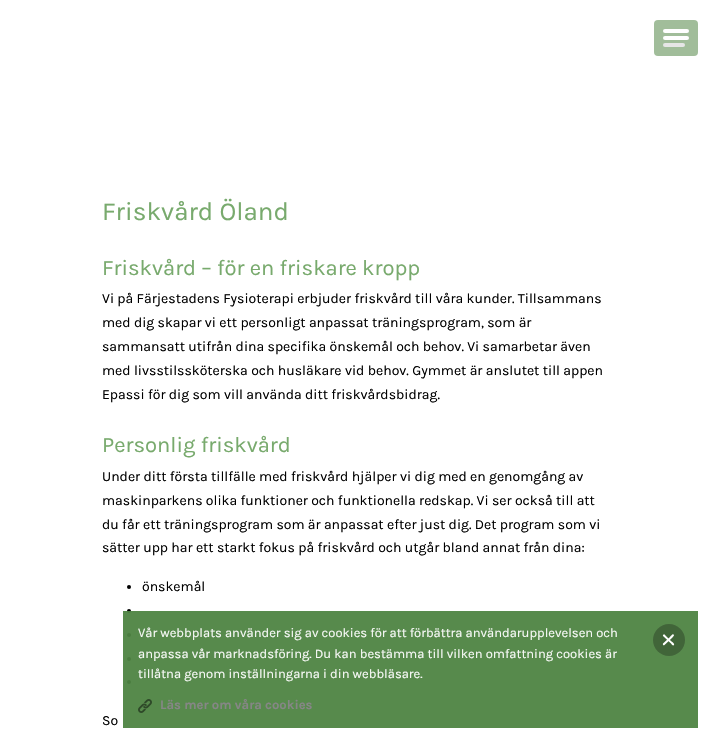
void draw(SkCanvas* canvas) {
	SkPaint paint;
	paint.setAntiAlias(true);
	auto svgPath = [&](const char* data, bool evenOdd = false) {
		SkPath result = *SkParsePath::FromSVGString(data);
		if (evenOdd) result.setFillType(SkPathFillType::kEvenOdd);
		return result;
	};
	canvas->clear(0xffffffff);
	paint.setColor(0xffa1bd9a);
	canvas->drawRoundRect(SkRect::MakeXYWH(654, 20, 44, 36), 4, 4, paint);
	paint.setColor(0xffffffff);
	canvas->drawRoundRect(SkRect::MakeXYWH(663, 29, 26, 4), 2, 2, paint);
	canvas->drawRoundRect(SkRect::MakeXYWH(663, 36, 26, 4), 2, 2, paint);
	paint.setColor(0xffe6e6e6);
	canvas->drawRoundRect(SkRect::MakeXYWH(663, 43, 22, 4), 2, 2, paint);
	SkFont f1(fontMgr->matchFamilyStyle("Karla", SkFontStyle::Normal()), 26);
	f1.setSubpixel(true);
	paint.setColor(0xff78aa6d);
	canvas->drawString("Friskvård Öland", 102, 220, f1, paint);
	SkFont f2(fontMgr->matchFamilyStyle("Karla", SkFontStyle::Normal()), 22);
	f2.setSubpixel(true);
	canvas->drawString("Friskvård – för en friskare kropp", 102, 275, f2, paint);
	SkFont f3(fontMgr->matchFamilyStyle("Karla", SkFontStyle::Normal()), 14);
	f3.setSubpixel(true);
	paint.setColor(0xff000000);
	canvas->drawString("Vi på Färjestadens Fysioterapi erbjuder friskvård till våra kunder. Tillsammans", 102, 303, f3, paint);
	canvas->drawString("med dig skapar vi ett personligt anpassat träningsprogram, som är", 102, 327, f3, paint);
	canvas->drawString("sammansatt utifrån dina specifika önskemål och behov. Vi samarbetar även", 102, 351, f3, paint);
	canvas->drawString("med livsstilssköterska och husläkare vid behov. Gymmet är anslutet till appen", 102, 375, f3, paint);
	canvas->drawString("Epassi för dig som vill använda ditt friskvårdsbidrag.", 102, 399, f3, paint);
	paint.setColor(0xff78aa6d);
	canvas->drawString("Personlig friskvård", 102, 452, f2, paint);
	paint.setColor(0xff000000);
	canvas->drawString("Under ditt första tillfälle med friskvård hjälper vi dig med en genomgång av", 102, 481, f3, paint);
	canvas->drawString("maskinparkens olika funktioner och funktionella redskap. Vi ser också till att", 102, 505, f3, paint);
	canvas->drawString("du får ett träningsprogram som är anpassat efter just dig. Det program som vi", 102, 529, f3, paint);
	canvas->drawString("sätter upp har ett starkt fokus på friskvård och utgår bland annat från dina:", 102, 552, f3, paint);
	canvas->drawCircle(129, 587, 2, paint);
	canvas->drawString("önskemål", 142, 591, f3, paint);
	canvas->drawCircle(129, 611, 2, paint);
	canvas->drawCircle(129, 635, 2, paint);
	canvas->drawCircle(129, 659, 2, paint);
	canvas->drawCircle(129, 682, 2, paint);
	canvas->drawString("So", 102, 725, f3, paint);
	paint.setColor(0xf24e8442);
	canvas->drawRect(SkRect::MakeXYWH(123, 611, 575, 117), paint);
	SkFont f4(fontMgr->matchFamilyStyle("Karla", SkFontStyle::Normal()), 13);
	f4.setSubpixel(true);
	paint.setColor(0xfff7f9f6);
	canvas->drawString("Vår webbplats använder sig av cookies för att förbättra användarupplevelsen och", 138, 637, f4, paint);
	canvas->drawString("anpassa vår marknadsföring. Du kan bestämma till vilken omfattning cookies är", 138, 658, f4, paint);
	canvas->drawString("tillåtna genom inställningarna i din webbläsare.", 138, 678, f4, paint);
	canvas->drawImageRect(SkImages::DeferredFromEncodedData(SkData::MakeFromFileName("img1.png")), SkRect::MakeXYWH(138, 699, 14, 14), SkSamplingOptions());
	SkFont f5(fontMgr->matchFamilyStyle("Karla", SkFontStyle::Bold()), 13);
	f5.setSubpixel(true);
	paint.setColor(0xff868686);
	canvas->drawString("Läs mer om våra cookies", 160, 709, f5, paint);
	paint.setColor(0xff416539);
	canvas->drawCircle(669, 640, 16, paint);
	paint.setColor(0xffffffff);
	canvas->drawPath(svgPath("M663 643.5L669.5 637.5C670 637 672.5 633.5 673.5 634.5C675 635.5 672.5 637 672.5 637.5L664.5 645C663.5 646 662.5 644.5 663 643.5Z"), paint);
	canvas->drawPath(svgPath("M664.5 634.5L670.5 640.5C671.5 641.5 675 643.5 674 645C673 646.5 671.5 644 671 643.5L663 636C662.5 635 664 633.5 664.5 634.5Z"), paint);
}
